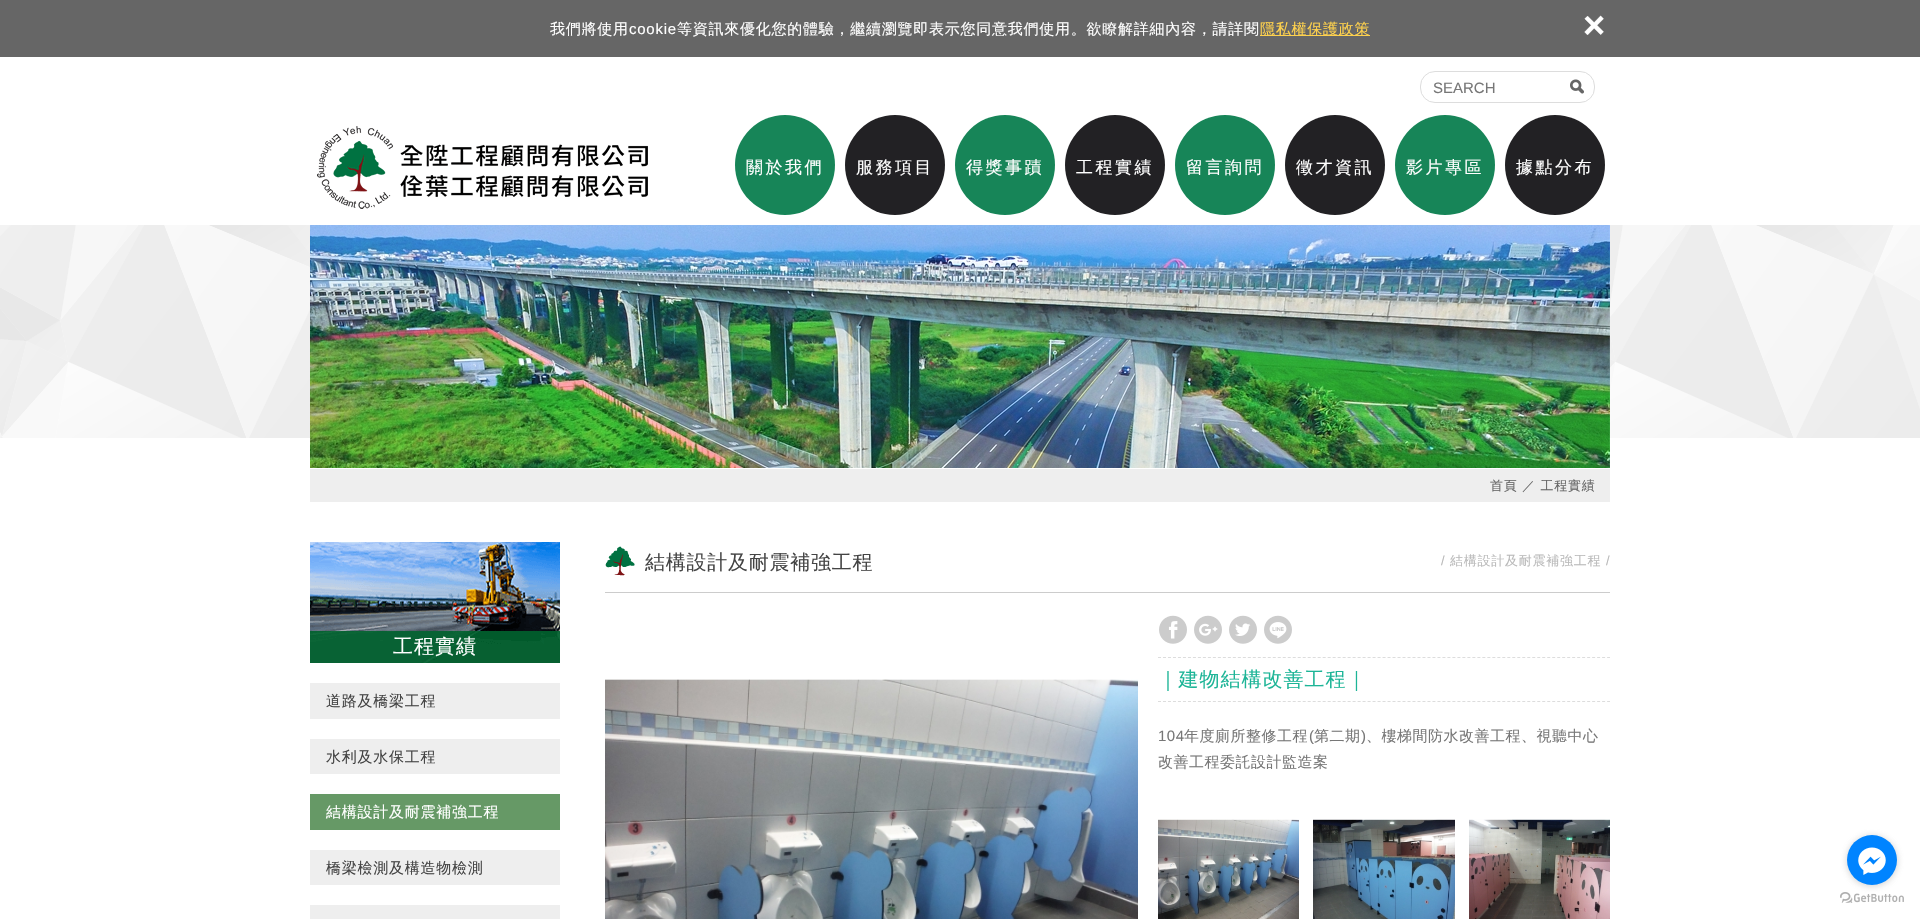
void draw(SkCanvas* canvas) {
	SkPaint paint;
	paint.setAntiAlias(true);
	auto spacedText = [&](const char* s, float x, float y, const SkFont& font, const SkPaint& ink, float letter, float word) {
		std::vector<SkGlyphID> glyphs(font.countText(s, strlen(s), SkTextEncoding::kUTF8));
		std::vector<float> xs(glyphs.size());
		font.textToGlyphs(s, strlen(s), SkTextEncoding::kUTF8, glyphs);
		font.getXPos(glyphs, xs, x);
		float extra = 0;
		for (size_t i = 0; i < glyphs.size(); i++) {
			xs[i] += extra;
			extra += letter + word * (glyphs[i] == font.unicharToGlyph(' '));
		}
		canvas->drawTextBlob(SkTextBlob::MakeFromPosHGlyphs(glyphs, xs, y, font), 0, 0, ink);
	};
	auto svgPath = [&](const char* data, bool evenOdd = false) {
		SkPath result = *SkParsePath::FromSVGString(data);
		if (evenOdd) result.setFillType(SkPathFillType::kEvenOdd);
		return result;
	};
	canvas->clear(0xffffffff);
	paint.setColor(0xff666666);
	canvas->drawRect(SkRect::MakeXYWH(0, 0, 1920, 57), paint);
	SkFont f1(fontMgr->matchFamilyStyle("WenQuanYi Zen Hei", SkFontStyle(500, SkFontStyle::kNormal_Width, SkFontStyle::kUpright_Slant)), 15);
	f1.setSubpixel(true);
	paint.setColor(0xffffffff);
	spacedText("我們將使用", 550, 34, f1, paint, 0.75, 0);
	SkFont f2(fontMgr->matchFamilyStyle("Liberation Sans", SkFontStyle::Normal()), 15);
	f2.setSubpixel(true);
	spacedText("cookie", 629, 34, f2, paint, 0.75, 0);
	spacedText("等資訊來優化您的體驗，繼續瀏覽即表示您同意我們使用。欲瞭解詳細內容，請詳閱", 677, 34, f1, paint, 0.75, 0);
	paint.setColor(0xffffd24d);
	canvas->drawRect(SkRect::MakeXYWH(1260, 35, 110, 1), paint);
	spacedText("隱私權保護政策", 1260, 34, f1, paint, 0.75, 0);
	SkFont f3(fontMgr->matchFamilyStyle("Liberation Sans", SkFontStyle::Bold()), 38);
	f3.setSubpixel(true);
	paint.setColor(0xffffffff);
	canvas->drawString("×", 1583, 38, f3, paint);
	paint.setStroke(true);
	paint.setStrokeWidth(1);
	paint.setColor(0xffdddddd);
	canvas->drawRoundRect(SkRect::MakeXYWH(1420.5, 71.5, 174, 31), 14.5, 14.5, paint);
	paint.setStroke(false);
	paint.setColor(0xff777777);
	canvas->drawString("SEARCH", 1433, 93, f2, paint);
	canvas->drawImageRect(SkImages::DeferredFromEncodedData(SkData::MakeFromFileName("img1.png")), SkRect::MakeXYWH(1570, 79, 14, 15), SkSamplingOptions());
	canvas->drawImageRect(SkImages::DeferredFromEncodedData(SkData::MakeFromFileName("img2.png")), SkRect::MakeXYWH(317, 126, 331, 83), SkSamplingOptions());
	canvas->drawImageRect(SkImages::DeferredFromEncodedData(SkData::MakeFromFileName("img3.png")), SkRect::MakeXYWH(735, 115, 100, 100), SkSamplingOptions());
	SkFont f4(fontMgr->matchFamilyStyle("WenQuanYi Zen Hei", SkFontStyle(500, SkFontStyle::kNormal_Width, SkFontStyle::kUpright_Slant)), 17);
	f4.setSubpixel(true);
	paint.setColor(0xffffffff);
	spacedText("關於我們", 746, 173, f4, paint, 2.5, 0);
	canvas->drawImageRect(SkImages::DeferredFromEncodedData(SkData::MakeFromFileName("img4.png")), SkRect::MakeXYWH(845, 115, 100, 100), SkSamplingOptions());
	spacedText("服務項目", 856, 173, f4, paint, 2.5, 0);
	canvas->drawImageRect(SkImages::DeferredFromEncodedData(SkData::MakeFromFileName("img5.png")), SkRect::MakeXYWH(955, 115, 100, 100), SkSamplingOptions());
	spacedText("得獎事蹟", 966, 173, f4, paint, 2.5, 0);
	canvas->drawImageRect(SkImages::DeferredFromEncodedData(SkData::MakeFromFileName("img4.png")), SkRect::MakeXYWH(1065, 115, 100, 100), SkSamplingOptions());
	spacedText("工程實績", 1076, 173, f4, paint, 2.5, 0);
	canvas->drawImageRect(SkImages::DeferredFromEncodedData(SkData::MakeFromFileName("img6.png")), SkRect::MakeXYWH(1175, 115, 100, 100), SkSamplingOptions());
	spacedText("留言詢問", 1186, 173, f4, paint, 2.5, 0);
	canvas->drawImageRect(SkImages::DeferredFromEncodedData(SkData::MakeFromFileName("img4.png")), SkRect::MakeXYWH(1285, 115, 100, 100), SkSamplingOptions());
	spacedText("徵才資訊", 1296, 173, f4, paint, 2.5, 0);
	canvas->drawImageRect(SkImages::DeferredFromEncodedData(SkData::MakeFromFileName("img5.png")), SkRect::MakeXYWH(1395, 115, 100, 100), SkSamplingOptions());
	spacedText("影片專區", 1406, 173, f4, paint, 2.5, 0);
	canvas->drawImageRect(SkImages::DeferredFromEncodedData(SkData::MakeFromFileName("img4.png")), SkRect::MakeXYWH(1505, 115, 100, 100), SkSamplingOptions());
	spacedText("據點分布", 1516, 173, f4, paint, 2.5, 0);
	canvas->drawImageRect(SkImages::DeferredFromEncodedData(SkData::MakeFromFileName("img7.png")), SkRect::MakeXYWH(0, 225, 1920, 213), SkSamplingOptions());
	canvas->drawImageRect(SkImages::DeferredFromEncodedData(SkData::MakeFromFileName("img8.png")), SkRect::MakeXYWH(310, 225, 1300, 243), SkSamplingOptions());
	paint.setColor(0xffeeeeee);
	canvas->drawRect(SkRect::MakeXYWH(310, 469, 1300, 33), paint);
	SkFont f5(fontMgr->matchFamilyStyle("WenQuanYi Zen Hei", SkFontStyle(500, SkFontStyle::kNormal_Width, SkFontStyle::kUpright_Slant)), 13);
	f5.setSubpixel(true);
	paint.setColor(0xff666666);
	spacedText("首頁", 1490, 490, f5, paint, 0.75, 0);
	spacedText("／ 工程實績", 1522, 490, f5, paint, 0.75, 0);
	canvas->drawImageRect(SkImages::DeferredFromEncodedData(SkData::MakeFromFileName("img9.png")), SkRect::MakeXYWH(310, 542, 250, 121), SkSamplingOptions());
	SkFont f6(fontMgr->matchFamilyStyle("WenQuanYi Zen Hei", SkFontStyle(500, SkFontStyle::kNormal_Width, SkFontStyle::kUpright_Slant)), 20);
	f6.setSubpixel(true);
	paint.setColor(0xffffffff);
	spacedText("工程實績", 393, 653, f6, paint, 1, 0);
	paint.setColor(0xffeeeeee);
	canvas->drawRect(SkRect::MakeXYWH(310, 683, 250, 36), paint);
	paint.setColor(0xff444444);
	spacedText("道路及橋梁工程", 326, 706, f1, paint, 0.75, 0);
	paint.setColor(0xffeeeeee);
	canvas->drawRect(SkRect::MakeXYWH(310, 739, 250, 35), paint);
	paint.setColor(0xff444444);
	spacedText("水利及水保工程", 326, 762, f1, paint, 0.75, 0);
	paint.setColor(0xff669966);
	canvas->drawRect(SkRect::MakeXYWH(310, 794, 250, 36), paint);
	paint.setColor(0xffffffff);
	spacedText("結構設計及耐震補強工程", 326, 817, f1, paint, 0.75, 0);
	paint.setColor(0xffeeeeee);
	canvas->drawRect(SkRect::MakeXYWH(310, 850, 250, 35), paint);
	paint.setColor(0xff444444);
	spacedText("橋梁檢測及構造物檢測", 326, 873, f1, paint, 0.75, 0);
	paint.setColor(0xffeeeeee);
	canvas->drawRect(SkRect::MakeXYWH(310, 905, 250, 14), paint);
	paint.setColor(0xffcccccc);
	canvas->drawRect(SkRect::MakeXYWH(605, 592, 1005, 1), paint);
	canvas->drawImageRect(SkImages::DeferredFromEncodedData(SkData::MakeFromFileName("img10.png")), SkRect::MakeXYWH(605, 546, 30, 30), SkSamplingOptions());
	paint.setColor(0xff444444);
	spacedText("結構設計及耐震補強工程", 645, 569, f6, paint, 0.75, 0);
	SkFont f7(fontMgr->matchFamilyStyle("Liberation Sans", SkFontStyle::Normal()), 13);
	f7.setSubpixel(true);
	paint.setColor(0xffbababa);
	spacedText("/", 1441, 565, f7, paint, 0.75, 0);
	spacedText("結構設計及耐震補強工程", 1450, 565, f5, paint, 0.75, 0);
	spacedText("/", 1606, 565, f7, paint, 0.75, 0);
	canvas->drawImageRect(SkImages::DeferredFromEncodedData(SkData::MakeFromFileName("img11.png")), SkRect::MakeXYWH(605, 679, 533, 240), SkSamplingOptions());
	canvas->drawImageRect(SkImages::DeferredFromEncodedData(SkData::MakeFromFileName("img12.png")), SkRect::MakeXYWH(1159, 615, 28, 29), SkSamplingOptions());
	canvas->drawImageRect(SkImages::DeferredFromEncodedData(SkData::MakeFromFileName("img13.png")), SkRect::MakeXYWH(1194, 615, 28, 29), SkSamplingOptions());
	canvas->drawImageRect(SkImages::DeferredFromEncodedData(SkData::MakeFromFileName("img14.png")), SkRect::MakeXYWH(1229, 615, 28, 29), SkSamplingOptions());
	canvas->drawImageRect(SkImages::DeferredFromEncodedData(SkData::MakeFromFileName("img15.png")), SkRect::MakeXYWH(1264, 615, 28, 29), SkSamplingOptions());
	paint.setStroke(true);
	paint.setColor(0xffdddddd);
	paint.setPathEffect(SkDashPathEffect::Make({{3, 1.99f}}, 0));
	canvas->drawPath(svgPath("M1158 657.5H1610"), paint);
	paint.setPathEffect(nullptr);
	paint.setPathEffect(SkDashPathEffect::Make({{3, 1.99f}}, 0));
	canvas->drawPath(svgPath("M1158 701.5H1610"), paint);
	paint.setPathEffect(nullptr);
	paint.setStroke(false);
	paint.setColor(0xff1db597);
	spacedText("｜建物結構改善工程｜", 1158, 686, f6, paint, 1, 0);
	paint.setColor(0xff777777);
	spacedText("104", 1158, 741, f2, paint, 0.5, 0);
	spacedText("年度廁所整修工程", 1184, 741, f1, paint, 0.5, 0);
	spacedText("(", 1309, 741, f2, paint, 0.5, 0);
	spacedText("第二期", 1314, 741, f1, paint, 0.5, 0);
	spacedText(")", 1361, 741, f2, paint, 0.5, 0);
	spacedText("、樓梯間防水改善工程、視聽中心", 1366, 741, f1, paint, 0.5, 0);
	spacedText("改善工程委託設計監造案", 1158, 767, f1, paint, 0.5, 0);
	canvas->drawImageRect(SkImages::DeferredFromEncodedData(SkData::MakeFromFileName("img16.png")), SkRect::MakeXYWH(1158, 819, 141, 100), SkSamplingOptions());
	canvas->drawImageRect(SkImages::DeferredFromEncodedData(SkData::MakeFromFileName("img17.png")), SkRect::MakeXYWH(1313, 819, 142, 100), SkSamplingOptions());
	canvas->drawImageRect(SkImages::DeferredFromEncodedData(SkData::MakeFromFileName("img18.png")), SkRect::MakeXYWH(1469, 819, 141, 100), SkSamplingOptions());
	canvas->drawImageRect(SkImages::DeferredFromEncodedData(SkData::MakeFromFileName("img20.png")), SkRect::MakeXYWH(1840, 892, 64, 11), SkSamplingOptions());
	paint.setColor(0x66888888);
	paint.setMaskFilter(SkMaskFilter::MakeBlur(kNormal_SkBlurStyle, 3.5));
	canvas->drawRoundRect(SkRect::MakeXYWH(1847, 836, 50, 50), 25, 25, paint);
	paint.setMaskFilter(nullptr);
	paint.setColor(0xff0084ff);
	canvas->drawCircle(1872, 860, 25, paint);
	canvas->drawImageRect(SkImages::DeferredFromEncodedData(SkData::MakeFromFileName("img19.png")), SkRect::MakeXYWH(1858, 847, 28, 28), SkSamplingOptions());
}
